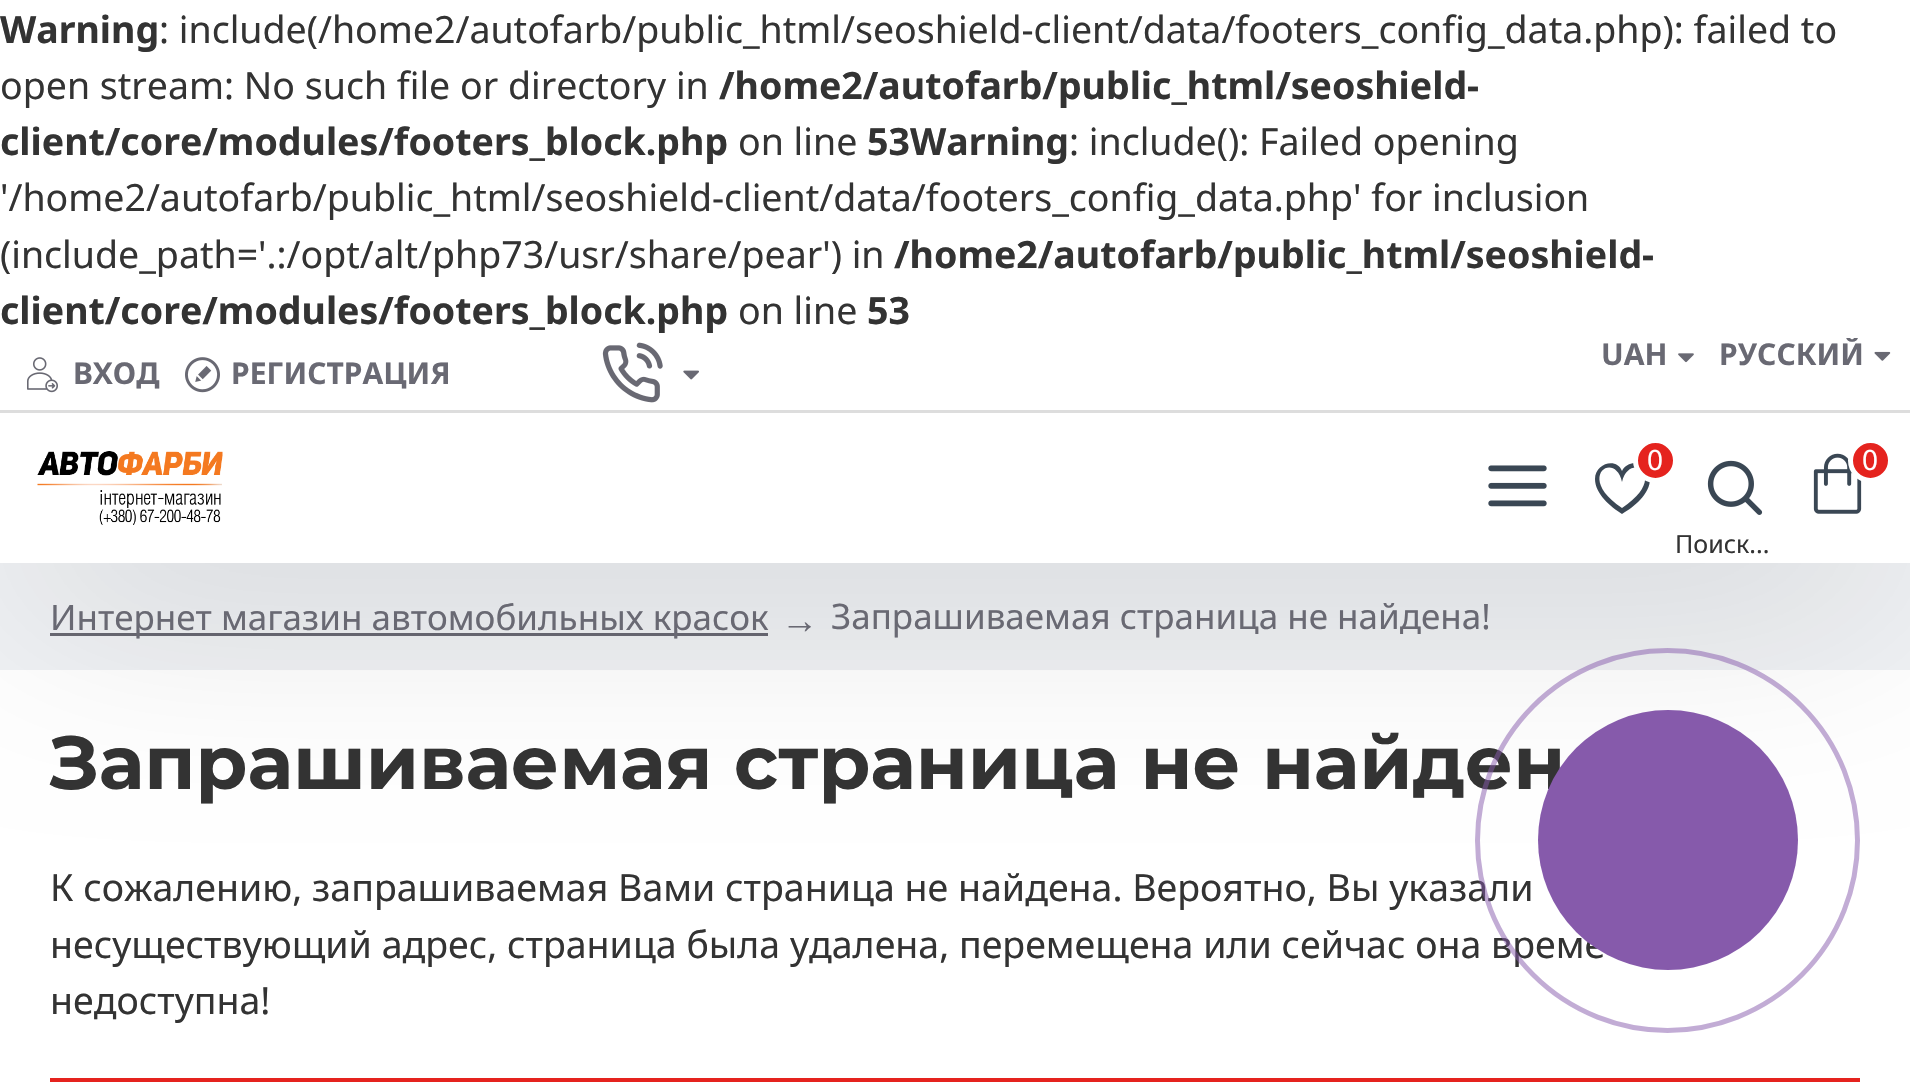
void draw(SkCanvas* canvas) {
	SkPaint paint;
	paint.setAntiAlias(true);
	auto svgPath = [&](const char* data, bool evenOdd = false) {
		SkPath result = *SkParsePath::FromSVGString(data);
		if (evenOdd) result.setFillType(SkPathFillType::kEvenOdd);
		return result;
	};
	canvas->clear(0xffffffff);
	SkFont f1(fontMgr->matchFamilyStyle("Noto Sans", SkFontStyle::Bold()), 37.5);
	f1.setSubpixel(true);
	paint.setColor(0xff333333);
	canvas->drawString("Warning", 0, 43, f1, paint);
	SkFont f2(fontMgr->matchFamilyStyle("Noto Sans", SkFontStyle::Normal()), 37.5);
	f2.setSubpixel(true);
	canvas->drawString(": include(/home2/autofarb/public_html/seoshield-client/data/footers_config_data.php): failed to", 159, 43, f2, paint);
	canvas->drawString("open stream: No such file or directory in", 0, 99, f2, paint);
	canvas->drawString("/home2/autofarb/public_html/seoshield-", 719, 99, f1, paint);
	canvas->drawString("client/core/modules/footers_block.php", 0, 155, f1, paint);
	canvas->drawString("on line", 738, 155, f2, paint);
	canvas->drawString("53Warning", 867, 155, f1, paint);
	canvas->drawString(": include(): Failed opening", 1069, 155, f2, paint);
	canvas->drawString("'/home2/autofarb/public_html/seoshield-client/data/footers_config_data.php' for inclusion", 0, 211, f2, paint);
	canvas->drawString("(include_path='.:/opt/alt/php73/usr/share/pear') in", 0, 268, f2, paint);
	canvas->drawString("/home2/autofarb/public_html/seoshield-", 894, 268, f1, paint);
	canvas->drawString("client/core/modules/footers_block.php", 0, 324, f1, paint);
	canvas->drawString("on line", 738, 324, f2, paint);
	canvas->drawString("53", 867, 324, f1, paint);
	paint.setColor(0xfff0f2f5);
	canvas->drawRect(SkRect::MakeXYWH(0, 563, 1910, 107), paint);
	paint.setColor(0xff696973);
	canvas->drawRect(SkRect::MakeXYWH(50, 633, 718, 3), paint);
	canvas->save();
	canvas->clipRect(SkRect::MakeXYWH(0, 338, 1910, 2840));
	paint.setColor(0x33000000);
	paint.setMaskFilter(SkMaskFilter::MakeBlur(kNormal_SkBlurStyle, 112.5));
	canvas->drawRect(SkRect::MakeXYWH(25, 475, 1860, 100), paint);
	paint.setMaskFilter(nullptr);
	canvas->restore();
	paint.setColor(0xffffffff);
	canvas->drawRect(SkRect::MakeXYWH(0, 338, 1910, 72), paint);
	paint.setColor(0xffdddddd);
	canvas->drawRect(SkRect::MakeXYWH(0, 410, 1910, 3), paint);
	SkFont f3(fontMgr->matchFamilyStyle("Noto Sans", SkFontStyle::Bold()), 30);
	f3.setSubpixel(true);
	paint.setColor(0xff696973);
	canvas->drawString("UAH", 1601, 365, f3, paint);
	canvas->drawImageRect(SkImages::DeferredFromEncodedData(SkData::MakeFromFileName("img1.png")), SkRect::MakeXYWH(1678, 353, 16, 10), SkSamplingOptions());
	canvas->save();
	canvas->clipRect(SkRect::MakeXYWH(0, 338, 1910, 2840));
	canvas->drawString("РУССКИЙ", 1719, 365, f3, paint);
	canvas->restore();
	canvas->drawImageRect(SkImages::DeferredFromEncodedData(SkData::MakeFromFileName("img2.png")), SkRect::MakeXYWH(1874, 351, 17, 10), SkSamplingOptions());
	canvas->drawImageRect(SkImages::DeferredFromEncodedData(SkData::MakeFromFileName("img3.png")), SkRect::MakeXYWH(27, 357, 31, 36), SkSamplingOptions());
	canvas->drawString("ВХОД", 73, 384, f3, paint);
	canvas->drawImageRect(SkImages::DeferredFromEncodedData(SkData::MakeFromFileName("img4.png")), SkRect::MakeXYWH(185, 357, 35, 36), SkSamplingOptions());
	canvas->drawString("РЕГИСТРАЦИЯ", 231, 384, f3, paint);
	canvas->drawImageRect(SkImages::DeferredFromEncodedData(SkData::MakeFromFileName("img5.png")), SkRect::MakeXYWH(602, 342, 61, 61), SkSamplingOptions());
	canvas->drawImageRect(SkImages::DeferredFromEncodedData(SkData::MakeFromFileName("img6.png")), SkRect::MakeXYWH(683, 370, 16, 10), SkSamplingOptions());
	paint.setColor(0xffffffff);
	canvas->drawRect(SkRect::MakeXYWH(0, 413, 1910, 150), paint);
	canvas->drawImageRect(SkImages::DeferredFromEncodedData(SkData::MakeFromFileName("img7.png")), SkRect::MakeXYWH(37, 451, 186, 74), SkSamplingOptions());
	paint.setColor(0xff3a4754);
	canvas->drawPath(svgPath("M1622 482C1630 450 1670 477 1622 508C1575 477 1615 450 1622 482ZM1595 479C1595 494 1611 507 1622 514C1634 507 1650 494 1650 479C1650 476 1649 472 1647 470C1641 461 1627 461 1622 471C1617 457 1595 463 1595 479Z"), paint);
	paint.setColor(0xffe5231e);
	canvas->drawCircle(1655.5, 460.5, 20, paint);
	paint.setStroke(true);
	paint.setStrokeWidth(5);
	paint.setColor(0xffffffff);
	canvas->drawCircle(1655.5, 460.5, 20, paint);
	SkFont f4(fontMgr->matchFamilyStyle("Noto Sans", SkFontStyle::Normal()), 28);
	f4.setSubpixel(true);
	paint.setStroke(false);
	canvas->drawString("0", 1647, 470, f4, paint);
	canvas->drawImageRect(SkImages::DeferredFromEncodedData(SkData::MakeFromFileName("img8.png")), SkRect::MakeXYWH(1813, 453, 49, 61), SkSamplingOptions());
	paint.setColor(0xffe5231e);
	canvas->drawCircle(1870.5, 460.5, 20, paint);
	paint.setStroke(true);
	paint.setColor(0xffffffff);
	canvas->drawCircle(1870.5, 460.5, 20, paint);
	paint.setStroke(false);
	canvas->drawString("0", 1862, 470, f4, paint);
	canvas->drawImageRect(SkImages::DeferredFromEncodedData(SkData::MakeFromFileName("img9.png")), SkRect::MakeXYWH(1488, 465, 59, 42), SkSamplingOptions());
	canvas->drawImageRect(SkImages::DeferredFromEncodedData(SkData::MakeFromFileName("img10.png")), SkRect::MakeXYWH(1707, 460, 56, 55), SkSamplingOptions());
	SkFont f5(fontMgr->matchFamilyStyle("Noto Sans", SkFontStyle::Normal()), 25);
	f5.setSubpixel(true);
	paint.setColor(0xff333333);
	canvas->drawString("Поиск...", 1675, 553, f5, paint);
	SkFont f6(fontMgr->matchFamilyStyle("Noto Sans", SkFontStyle::Normal()), 35);
	f6.setSubpixel(true);
	paint.setColor(0xff696973);
	canvas->drawString("Интернет магазин автомобильных красок", 50, 630, f6, paint);
	SkFont f7(fontMgr->matchFamilyStyle("Liberation Serif", SkFontStyle::Normal()), 37.5);
	f7.setSubpixel(true);
	canvas->drawString("→", 781, 633, f7, paint);
	canvas->drawString("Запрашиваемая страница не найдена!", 831, 629, f6, paint);
	SkFont f8(fontMgr->matchFamilyStyle("Montserrat", SkFontStyle::Bold()), 75);
	f8.setSubpixel(true);
	paint.setColor(0xff333333);
	canvas->drawString("Запрашиваемая страница не найден", 50, 789, f8, paint);
	canvas->drawString("К сожалению, запрашиваемая Вами страница не найдена. Вероятно, Вы указали", 50, 901, f2, paint);
	canvas->drawString("несуществующий адрес, страница была удалена, перемещена или сейчас она време", 50, 958, f2, paint);
	canvas->drawString("недоступна!", 50, 1014, f2, paint);
	paint.setColor(0xffe5231e);
	canvas->drawRect(SkRect::MakeXYWH(50, 1078, 1810, 4), paint);
	paint.setStroke(true);
	paint.setColor(0x80865aab);
	canvas->drawCircle(1667.5, 840.5, 190, paint);
	paint.setStroke(false);
	paint.setColor(0xff865aab);
	canvas->drawCircle(1668, 840, 130, paint);
}
